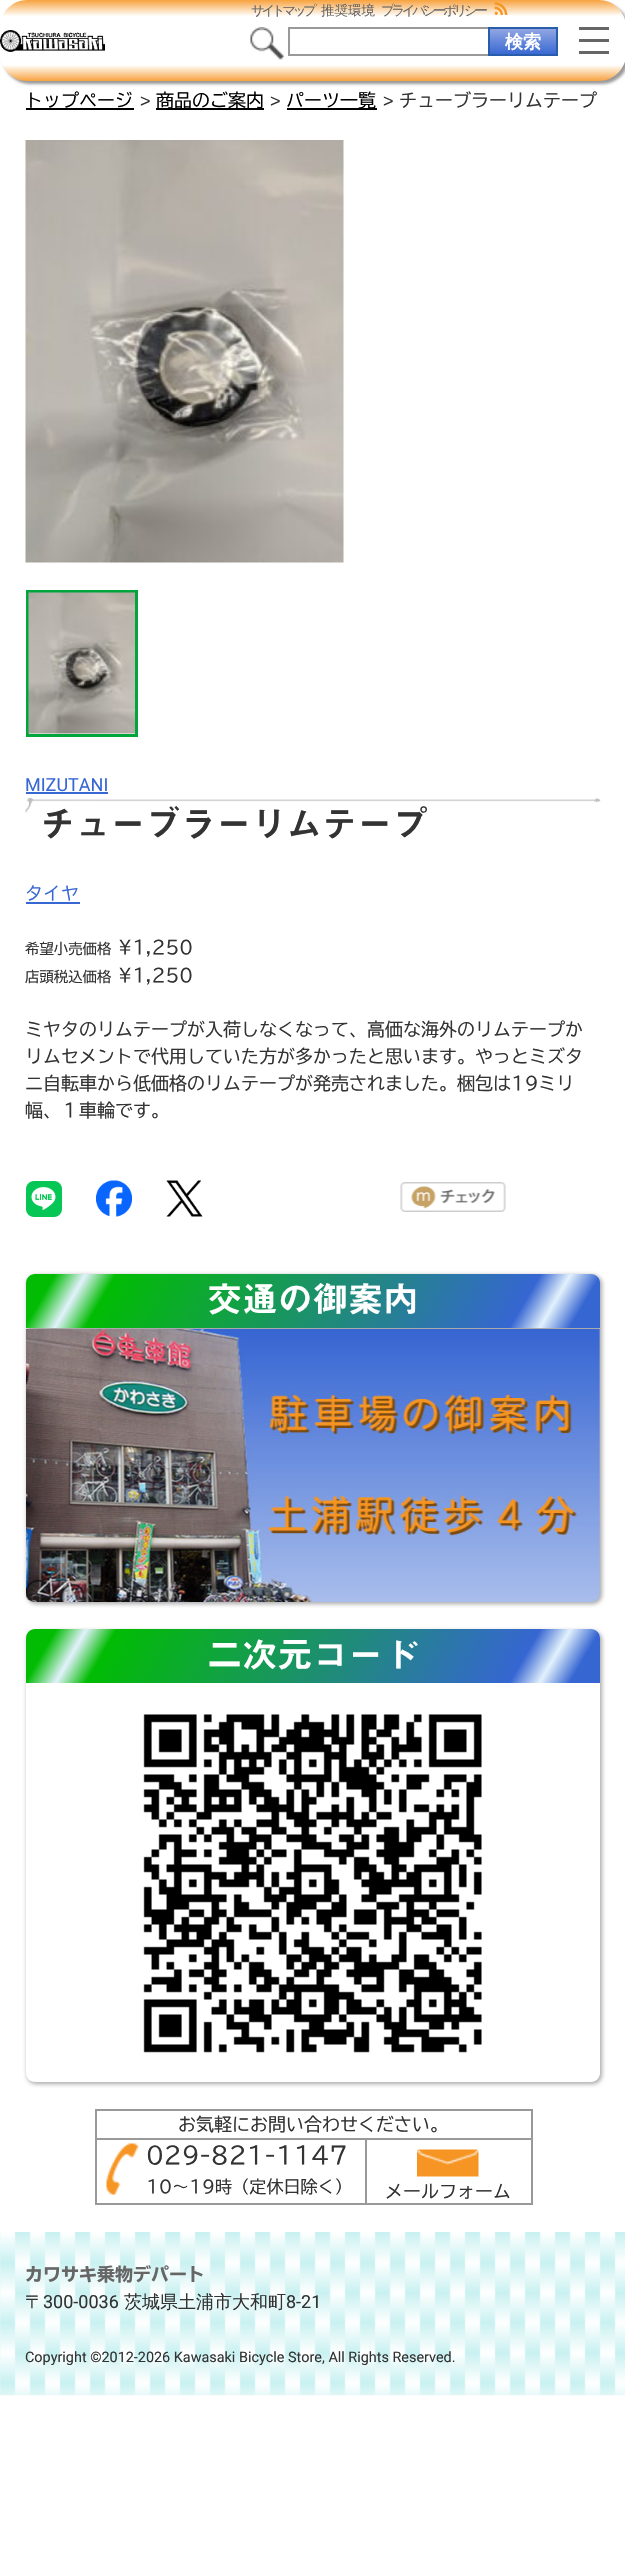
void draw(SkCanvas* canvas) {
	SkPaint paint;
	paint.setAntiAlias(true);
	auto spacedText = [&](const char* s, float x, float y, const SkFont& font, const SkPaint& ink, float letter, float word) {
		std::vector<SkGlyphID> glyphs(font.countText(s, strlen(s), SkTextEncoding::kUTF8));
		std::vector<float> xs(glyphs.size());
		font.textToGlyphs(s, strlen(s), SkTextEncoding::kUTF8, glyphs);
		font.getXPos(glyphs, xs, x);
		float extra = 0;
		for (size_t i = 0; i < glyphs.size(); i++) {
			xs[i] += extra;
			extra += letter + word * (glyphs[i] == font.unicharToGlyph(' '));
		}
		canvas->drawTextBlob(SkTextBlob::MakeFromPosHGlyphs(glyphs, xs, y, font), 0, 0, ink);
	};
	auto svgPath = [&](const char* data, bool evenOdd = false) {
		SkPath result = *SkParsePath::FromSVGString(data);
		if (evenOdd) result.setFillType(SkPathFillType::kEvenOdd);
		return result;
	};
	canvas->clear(0xffffffff);
	paint.setColor(0xff999999);
	paint.setMaskFilter(SkMaskFilter::MakeBlur(kNormal_SkBlurStyle, 1.5));
	canvas->drawRoundRect(SkRect::MakeXYWH(3, 3, 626, 81), 27, 27, paint);
	paint.setMaskFilter(nullptr);
	{
		const SkColor colors[] = {0xfff8a23e, 0xffffffff, 0xffffffff, 0xfff8a23e};
		const float stops[] = {0, 0.2, 0.8, 1};
		const SkPoint ends[] = {{313, 0}, {313, 81}};
		paint.setShader(SkGradientShader::MakeLinear(ends, colors, stops, 4, SkTileMode::kClamp));
		paint.setAlpha(255);
	}
	canvas->drawRoundRect(SkRect::MakeXYWH(0, 0, 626, 81), 27, 27, paint);
	canvas->drawImageRect(SkImages::DeferredFromEncodedData(SkData::MakeFromFileName("img1.png")), SkRect::MakeXYWH(0, 30, 105, 22), SkSamplingOptions());
	SkFont f1(fontMgr->matchFamilyStyle("WenQuanYi Zen Hei", SkFontStyle(500, SkFontStyle::kNormal_Width, SkFontStyle::kUpright_Slant)), 13.5);
	f1.setSubpixel(true);
	paint.setShader(nullptr);
	paint.setColor(0xff666666);
	spacedText("サイトマップ", 251, 15, f1, paint, -3.4, 0);
	canvas->drawString("推奨環境", 321, 15, f1, paint);
	spacedText("プライバシーポリシー", 381, 15, f1, paint, -3.4, 0);
	canvas->drawImageRect(SkImages::DeferredFromEncodedData(SkData::MakeFromFileName("img2.png")), SkRect::MakeXYWH(494, 2, 14, 13), SkSamplingOptions());
	canvas->drawImageRect(SkImages::DeferredFromEncodedData(SkData::MakeFromFileName("img3.png")), SkRect::MakeXYWH(250, 27, 34, 33), SkSamplingOptions());
	paint.setColor(0xff999999);
	canvas->drawRect(SkRect::MakeXYWH(288, 27, 200, 2), paint);
	canvas->drawRect(SkRect::MakeXYWH(288, 54, 200, 2), paint);
	canvas->drawRect(SkRect::MakeXYWH(288, 27, 2, 29), paint);
	{
		const SkColor colors[] = {0xff94a9e3, 0xff3a69d4};
		const float stops[] = {0, 1};
		const SkPoint ends[] = {{523, 28}, {523, 54}};
		paint.setShader(SkGradientShader::MakeLinear(ends, colors, stops, 2, SkTileMode::kClamp));
		paint.setAlpha(255);
	}
	canvas->drawRect(SkRect::MakeXYWH(490, 29, 66, 25), paint);
	paint.setStroke(true);
	paint.setStrokeWidth(2);
	paint.setShader(nullptr);
	paint.setColor(0xff2a5da9);
	canvas->drawRect(SkRect::MakeXYWH(489, 28, 68, 27), paint);
	SkFont f2(fontMgr->matchFamilyStyle("WenQuanYi Zen Hei", SkFontStyle::Bold()), 18);
	f2.setSubpixel(true);
	paint.setStroke(false);
	paint.setColor(0xffffffff);
	canvas->drawString("検索", 505, 48, f2, paint);
	paint.setColor(0xff666666);
	canvas->drawRect(SkRect::MakeXYWH(579, 27, 30, 3), paint);
	canvas->drawRect(SkRect::MakeXYWH(579, 39, 30, 3), paint);
	canvas->drawRect(SkRect::MakeXYWH(579, 51, 30, 3), paint);
	SkFont f3(fontMgr->matchFamilyStyle("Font", SkFontStyle::Normal()), 18);
	f3.setSubpixel(true);
	paint.setColor(0xff000000);
	canvas->drawString("トップページ", 25, 107, f3, paint);
	canvas->drawRect(SkRect::MakeXYWH(26, 108, 108, 2), paint);
	SkFont f4(fontMgr->matchFamilyStyle("Liberation Sans", SkFontStyle::Normal()), 18);
	f4.setSubpixel(true);
	paint.setColor(0xff333333);
	spacedText(">", 140, 107, f4, paint, 5, 0);
	paint.setColor(0xff000000);
	canvas->drawRect(SkRect::MakeXYWH(156, 108, 108, 2), paint);
	canvas->drawString("商品のご案内", 156, 107, f3, paint);
	paint.setColor(0xff333333);
	spacedText(">", 270, 107, f4, paint, 5, 0);
	paint.setColor(0xff000000);
	canvas->drawRect(SkRect::MakeXYWH(287, 108, 90, 2), paint);
	canvas->drawString("パーツ一覧", 286, 107, f3, paint);
	paint.setColor(0xff333333);
	spacedText(">", 383, 107, f4, paint, 5, 0);
	canvas->drawString("チューブラーリムテープ", 399, 107, f3, paint);
	canvas->drawImageRect(SkImages::DeferredFromEncodedData(SkData::MakeFromFileName("img4.png")), SkRect::MakeXYWH(25, 140, 319, 423), SkSamplingOptions());
	paint.setStroke(true);
	paint.setStrokeWidth(3);
	paint.setColor(0xff00a53b);
	canvas->drawRect(SkRect::MakeXYWH(27.5, 591.5, 109, 144), paint);
	canvas->drawImageRect(SkImages::DeferredFromEncodedData(SkData::MakeFromFileName("img5.png")), SkRect::MakeXYWH(28, 592, 107, 142), SkSamplingOptions());
	SkFont f5(fontMgr->matchFamilyStyle("Roboto", SkFontStyle::Normal()), 18);
	f5.setSubpixel(true);
	paint.setStroke(false);
	paint.setColor(0xff3767d3);
	canvas->drawString("MIZUTANI", 25, 791, f5, paint);
	canvas->drawRect(SkRect::MakeXYWH(26, 792, 82, 2), paint);
	canvas->drawImageRect(SkImages::DeferredFromEncodedData(SkData::MakeFromFileName("img6.png")), SkRect::MakeXYWH(25, 798, 576, 15), SkSamplingOptions());
	SkFont f6(fontMgr->matchFamilyStyle("Font", SkFontStyle(600, SkFontStyle::kNormal_Width, SkFontStyle::kUpright_Slant)), 35.25);
	f6.setSubpixel(true);
	paint.setColor(0xff333333);
	canvas->drawString("チューブラーリムテープ", 40, 837, f6, paint);
	paint.setColor(0xff3767d3);
	canvas->drawString("タイヤ", 25, 900, f3, paint);
	canvas->drawRect(SkRect::MakeXYWH(26, 902, 54, 2), paint);
	SkFont f7(fontMgr->matchFamilyStyle("Font", SkFontStyle::Normal()), 14.4);
	f7.setSubpixel(true);
	paint.setColor(0xff333333);
	canvas->drawString("希望小売価格", 25, 954, f7, paint);
	canvas->drawString("¥1,250", 118, 954, f3, paint);
	canvas->drawString("店頭税込価格", 25, 982, f7, paint);
	canvas->drawString("¥1,250", 118, 982, f3, paint);
	canvas->drawString("ミヤタのリムテープが入荷しなくなって、高価な海外のリムテープか", 25, 1036, f3, paint);
	canvas->drawString("リムセメントで代用していた方が多かったと思います。やっとミズタ", 25, 1063, f3, paint);
	canvas->drawString("ニ自転車から低価格のリムテープが発売されました。梱包は19ミリ", 25, 1090, f3, paint);
	canvas->drawString("幅、１車輪です。", 25, 1117, f3, paint);
	canvas->drawImageRect(SkImages::DeferredFromEncodedData(SkData::MakeFromFileName("img7.png")), SkRect::MakeXYWH(26, 1181, 36, 36), SkSamplingOptions());
	canvas->drawImageRect(SkImages::DeferredFromEncodedData(SkData::MakeFromFileName("img8.png")), SkRect::MakeXYWH(96, 1180, 36, 37), SkSamplingOptions());
	canvas->drawImageRect(SkImages::DeferredFromEncodedData(SkData::MakeFromFileName("img9.png")), SkRect::MakeXYWH(166, 1180, 37, 37), SkSamplingOptions());
	canvas->drawImageRect(SkImages::DeferredFromEncodedData(SkData::MakeFromFileName("img10.png")), SkRect::MakeXYWH(400, 1182, 106, 30), SkSamplingOptions());
	paint.setColor(0xffaaaaaa);
	paint.setMaskFilter(SkMaskFilter::MakeBlur(kNormal_SkBlurStyle, 2));
	canvas->drawRoundRect(SkRect::MakeXYWH(27, 1275, 575, 329), 9, 9, paint);
	paint.setMaskFilter(nullptr);
	{
		const SkColor colors[] = {0xff01bc03, 0xffe2f1fc, 0xff01bc03, 0xff3666d2, 0xffe2f1fc, 0xff3666d2};
		const float stops[] = {0.05, 0.1, 0.15, 0.85, 0.9, 0.95};
		const SkPoint ends[] = {{86, 1169}, {540, 1432}};
		paint.setShader(SkGradientShader::MakeLinear(ends, colors, stops, 6, SkTileMode::kClamp));
		paint.setAlpha(255);
	}
	canvas->drawPath(svgPath("M35 1274H591C596 1274 600 1278 600 1283V1328H26V1283C26 1278 30 1274 35 1274Z"), paint);
	paint.setShader(nullptr);
	paint.setColor(0xffffffff);
	canvas->drawString("交通の御案内", 207, 1312, f6, paint);
	canvas->drawImageRect(SkImages::DeferredFromEncodedData(SkData::MakeFromFileName("img11.png")), SkRect::MakeXYWH(26, 1329, 574, 273), SkSamplingOptions());
	canvas->save();
	canvas->clipPath(svgPath("M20 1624H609V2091H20ZM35 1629H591C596 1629 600 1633 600 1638V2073C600 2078 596 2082 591 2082H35C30 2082 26 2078 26 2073V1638C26 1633 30 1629 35 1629Z", true), true);
	paint.setColor(0xffaaaaaa);
	paint.setMaskFilter(SkMaskFilter::MakeBlur(kNormal_SkBlurStyle, 2));
	canvas->drawRoundRect(SkRect::MakeXYWH(27, 1631, 575, 453), 9, 9, paint);
	paint.setMaskFilter(nullptr);
	canvas->restore();
	{
		const SkColor colors[] = {0xff01bc03, 0xffe2f1fc, 0xff01bc03, 0xff3666d2, 0xffe2f1fc, 0xff3666d2};
		const float stops[] = {0.05, 0.1, 0.15, 0.85, 0.9, 0.95};
		const SkPoint ends[] = {{86, 1525}, {540, 1787}};
		paint.setShader(SkGradientShader::MakeLinear(ends, colors, stops, 6, SkTileMode::kClamp));
		paint.setAlpha(255);
	}
	canvas->drawPath(svgPath("M35 1629H591C596 1629 600 1633 600 1638V1683H26V1638C26 1633 30 1629 35 1629Z"), paint);
	paint.setShader(nullptr);
	paint.setColor(0xffffffff);
	canvas->drawString("二次元コード", 207, 1668, f6, paint);
	canvas->drawImageRect(SkImages::DeferredFromEncodedData(SkData::MakeFromFileName("img12.png")), SkRect::MakeXYWH(143, 1714, 339, 339), SkSamplingOptions());
	paint.setStroke(true);
	paint.setStrokeWidth(2);
	paint.setColor(0xff999999);
	canvas->drawRect(SkRect::MakeXYWH(96, 2110, 436, 94), paint);
	paint.setStroke(false);
	canvas->drawRect(SkRect::MakeXYWH(96, 2138, 435, 2), paint);
	paint.setColor(0xff333333);
	canvas->drawString("お気軽にお問い合わせください。", 178, 2131, f3, paint);
	canvas->drawImageRect(SkImages::DeferredFromEncodedData(SkData::MakeFromFileName("img13.png")), SkRect::MakeXYWH(106, 2143, 33, 52), SkSamplingOptions());
	SkFont f8(fontMgr->matchFamilyStyle("Font", SkFontStyle::Normal()), 23.5);
	f8.setSubpixel(true);
	canvas->drawString("029-821-1147", 146, 2164, f8, paint);
	SkFont f9(fontMgr->matchFamilyStyle("Font", SkFontStyle::Normal()), 17.1);
	f9.setSubpixel(true);
	canvas->drawString("10～19時（定休日除く）", 146, 2193, f9, paint);
	paint.setColor(0xff999999);
	canvas->drawRect(SkRect::MakeXYWH(365, 2139, 2, 65), paint);
	canvas->drawImageRect(SkImages::DeferredFromEncodedData(SkData::MakeFromFileName("img14.png")), SkRect::MakeXYWH(417, 2149, 62, 28), SkSamplingOptions());
	paint.setColor(0xff333333);
	canvas->drawString("メールフォーム", 385, 2198, f3, paint);
	canvas->drawImageRect(SkImages::DeferredFromEncodedData(SkData::MakeFromFileName("img15.png")), SkRect::MakeXYWH(0, 2232, 625, 164), SkSamplingOptions());
	SkFont f10(fontMgr->matchFamilyStyle("Font", SkFontStyle(800, SkFontStyle::kNormal_Width, SkFontStyle::kUpright_Slant)), 18);
	f10.setSubpixel(true);
	paint.setColor(0xff666666);
	canvas->drawString("カワサキ乗物デパート", 25, 2281, f10, paint);
	SkFont f11(fontMgr->matchFamilyStyle("WenQuanYi Zen Hei", SkFontStyle(500, SkFontStyle::kNormal_Width, SkFontStyle::kUpright_Slant)), 18);
	f11.setSubpixel(true);
	paint.setColor(0xff333333);
	canvas->drawString("〒", 25, 2308, f11, paint);
	canvas->drawString("300-0036", 43, 2308, f5, paint);
	canvas->drawString("茨城県土浦市大和町", 124, 2308, f11, paint);
	canvas->drawString("8-21", 286, 2308, f5, paint);
	SkFont f12(fontMgr->matchFamilyStyle("Roboto", SkFontStyle::Normal()), 14.4);
	f12.setSubpixel(true);
	canvas->drawString("Copyright ©2012-2026 Kawasaki Bicycle Store, All Rights Reserved.", 25, 2362, f12, paint);
}
